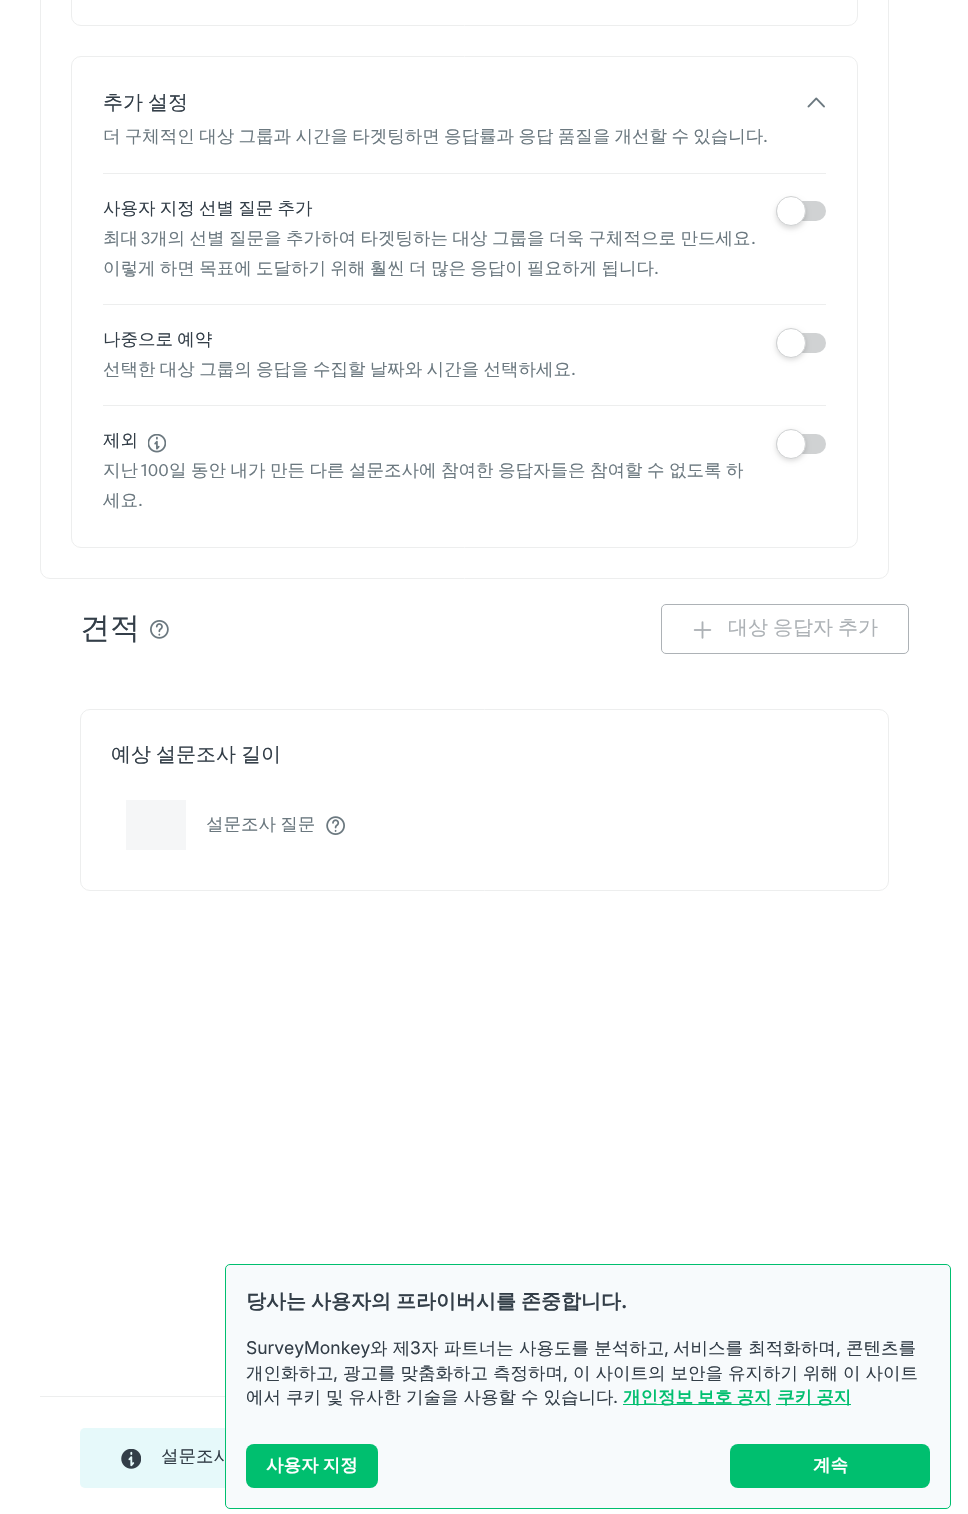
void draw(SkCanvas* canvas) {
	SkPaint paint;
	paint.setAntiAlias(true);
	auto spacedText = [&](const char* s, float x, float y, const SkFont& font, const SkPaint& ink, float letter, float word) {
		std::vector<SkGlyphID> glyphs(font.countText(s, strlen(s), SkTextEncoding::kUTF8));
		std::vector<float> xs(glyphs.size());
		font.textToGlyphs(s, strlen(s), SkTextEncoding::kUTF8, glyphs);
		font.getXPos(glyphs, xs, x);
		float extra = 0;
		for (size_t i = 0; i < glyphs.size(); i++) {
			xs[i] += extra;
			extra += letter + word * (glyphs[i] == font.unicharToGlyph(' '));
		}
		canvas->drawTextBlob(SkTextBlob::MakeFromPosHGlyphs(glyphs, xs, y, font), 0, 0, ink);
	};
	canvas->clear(0xffffffff);
	paint.setStroke(true);
	paint.setStrokeWidth(1);
	paint.setColor(0xffedeeee);
	canvas->drawRoundRect(SkRect::MakeXYWH(40.5, -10.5, 848, 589), 9.5, 9.5, paint);
	canvas->drawRoundRect(SkRect::MakeXYWH(71.5, -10.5, 786, 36), 9.5, 9.5, paint);
	canvas->drawRoundRect(SkRect::MakeXYWH(71.5, 56.5, 786, 491), 9.5, 9.5, paint);
	SkFont f1(fontMgr->matchFamilyStyle("WenQuanYi Zen Hei", SkFontStyle(500, SkFontStyle::kNormal_Width, SkFontStyle::kUpright_Slant)), 20);
	f1.setSubpixel(true);
	paint.setStroke(false);
	paint.setColor(0xff333e48);
	spacedText("추가 설정", 103, 109, f1, paint, 0, -1);
	canvas->drawImageRect(SkImages::DeferredFromEncodedData(SkData::MakeFromFileName("img1.png")), SkRect::MakeXYWH(807, 97, 18, 11), SkSamplingOptions());
	SkFont f2(fontMgr->matchFamilyStyle("WenQuanYi Zen Hei", SkFontStyle(500, SkFontStyle::kNormal_Width, SkFontStyle::kUpright_Slant)), 17.5);
	f2.setSubpixel(true);
	paint.setColor(0xff6b787f);
	spacedText("더 구체적인 대상 그룹과 시간을 타겟팅하면 응답률과 응답 품질을 개선할 수 있습니다", 103, 142, f2, paint, 0, -0.9);
	SkFont f3(fontMgr->matchFamilyStyle("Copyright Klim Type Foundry", SkFontStyle::Normal()), 17.5);
	f3.setSubpixel(true);
	canvas->drawString(".", 763, 142, f3, paint);
	paint.setColor(0xffedeeee);
	canvas->drawRect(SkRect::MakeXYWH(103, 173, 723, 1), paint);
	paint.setColor(0xff333e48);
	spacedText("사용자 지정 선별 질문 추가", 103, 214, f2, paint, 0, -1);
	paint.setColor(0xff6b787f);
	canvas->drawString("최대", 103, 244, f2, paint);
	canvas->drawString("3", 141, 244, f3, paint);
	spacedText("개의 선별 질문을 추가하여 타겟팅하는 대상 그룹을 더욱 구체적으로 만드세요", 150, 244, f2, paint, 0, -0.75);
	canvas->drawString(".", 751, 244, f3, paint);
	spacedText("이렇게 하면 목표에 도달하기 위해 훨씬 더 많은 응답이 필요하게 됩니다", 103, 274, f2, paint, 0, -0.9);
	canvas->drawString(".", 654, 274, f3, paint);
	paint.setColor(0xffd0d2d3);
	canvas->drawRoundRect(SkRect::MakeXYWH(776, 201, 50, 20), 10, 10, paint);
	paint.setColor(0x24000000);
	paint.setMaskFilter(SkMaskFilter::MakeBlur(kNormal_SkBlurStyle, 2.5));
	canvas->drawRoundRect(SkRect::MakeXYWH(776, 199, 30, 30), 15, 15, paint);
	paint.setMaskFilter(nullptr);
	paint.setColor(0xffffffff);
	canvas->drawCircle(791, 211, 14.5, paint);
	paint.setStroke(true);
	paint.setColor(0xffd0d2d3);
	canvas->drawCircle(791, 211, 14.5, paint);
	paint.setStroke(false);
	paint.setColor(0xffedeeee);
	canvas->drawRect(SkRect::MakeXYWH(103, 304, 723, 1), paint);
	paint.setColor(0xff333e48);
	spacedText("나중으로 예약", 103, 345, f2, paint, 0, -1);
	paint.setColor(0xff6b787f);
	spacedText("선택한 대상 그룹의 응답을 수집할 날짜와 시간을 선택하세요", 103, 375, f2, paint, 0, -0.9);
	canvas->drawString(".", 571, 375, f3, paint);
	paint.setColor(0xffd0d2d3);
	canvas->drawRoundRect(SkRect::MakeXYWH(776, 333, 50, 20), 10, 10, paint);
	paint.setColor(0x24000000);
	paint.setMaskFilter(SkMaskFilter::MakeBlur(kNormal_SkBlurStyle, 2.5));
	canvas->drawRoundRect(SkRect::MakeXYWH(776, 330, 30, 30), 15, 15, paint);
	paint.setMaskFilter(nullptr);
	paint.setColor(0xffffffff);
	canvas->drawCircle(791, 343, 14.5, paint);
	paint.setStroke(true);
	paint.setColor(0xffd0d2d3);
	canvas->drawCircle(791, 343, 14.5, paint);
	paint.setStroke(false);
	paint.setColor(0xffedeeee);
	canvas->drawRect(SkRect::MakeXYWH(103, 405, 723, 1), paint);
	paint.setColor(0xff333e48);
	canvas->drawString("제외", 103, 446, f2, paint);
	canvas->drawImageRect(SkImages::DeferredFromEncodedData(SkData::MakeFromFileName("img2.png")), SkRect::MakeXYWH(148, 434, 18, 19), SkSamplingOptions());
	paint.setColor(0xff6b787f);
	canvas->drawString("지난", 103, 476, f2, paint);
	canvas->drawString("100", 141, 476, f3, paint);
	spacedText("일 동안 내가 만든 다른 설문조사에 참여한 응답자들은 참여할 수 없도록 하", 169, 476, f2, paint, 0, -0.75);
	canvas->drawString("세요", 103, 506, f2, paint);
	canvas->drawString(".", 138, 506, f3, paint);
	paint.setColor(0xffd0d2d3);
	canvas->drawRoundRect(SkRect::MakeXYWH(776, 434, 50, 20), 10, 10, paint);
	paint.setColor(0x24000000);
	paint.setMaskFilter(SkMaskFilter::MakeBlur(kNormal_SkBlurStyle, 2.5));
	canvas->drawRoundRect(SkRect::MakeXYWH(776, 431, 30, 30), 15, 15, paint);
	paint.setMaskFilter(nullptr);
	paint.setColor(0xffffffff);
	canvas->drawCircle(791, 444, 14.5, paint);
	paint.setStroke(true);
	paint.setColor(0xffd0d2d3);
	canvas->drawCircle(791, 444, 14.5, paint);
	SkFont f4(fontMgr->matchFamilyStyle("WenQuanYi Zen Hei", SkFontStyle(500, SkFontStyle::kNormal_Width, SkFontStyle::kUpright_Slant)), 30);
	f4.setSubpixel(true);
	paint.setStroke(false);
	paint.setColor(0xff333e48);
	canvas->drawString("견적", 80, 638, f4, paint);
	canvas->drawImageRect(SkImages::DeferredFromEncodedData(SkData::MakeFromFileName("img3.png")), SkRect::MakeXYWH(150, 620, 19, 19), SkSamplingOptions());
	paint.setStroke(true);
	paint.setColor(0xffadb2b6);
	canvas->drawRoundRect(SkRect::MakeXYWH(661.5, 604.5, 247, 49), 4.5, 4.5, paint);
	canvas->drawImageRect(SkImages::DeferredFromEncodedData(SkData::MakeFromFileName("img4.png")), SkRect::MakeXYWH(693, 621, 19, 18), SkSamplingOptions());
	paint.setStroke(false);
	spacedText("대상 응답자 추가", 728, 634, f1, paint, 0, -1);
	paint.setStroke(true);
	paint.setColor(0xffedeeee);
	canvas->drawRoundRect(SkRect::MakeXYWH(80.5, 709.5, 808, 181), 9.5, 9.5, paint);
	paint.setStroke(false);
	paint.setColor(0xff333e48);
	spacedText("예상 설문조사 길이", 111, 761, f1, paint, 0, -1);
	{
		const SkColor colors[] = {0xfff5f6f7, 0xffeeeeee, 0xfff5f6f7};
		const float stops[] = {0, 0.5, 1};
		const SkPoint ends[] = {{6.2, 800}, {66, 800}};
		paint.setShader(SkGradientShader::MakeLinear(ends, colors, stops, 3, SkTileMode::kClamp));
		paint.setAlpha(255);
	}
	canvas->drawRect(SkRect::MakeXYWH(126, 800, 60, 50), paint);
	paint.setShader(nullptr);
	paint.setColor(0xff6b787f);
	spacedText("설문조사 질문", 206, 830, f2, paint, 0, -0.9);
	canvas->drawImageRect(SkImages::DeferredFromEncodedData(SkData::MakeFromFileName("img5.png")), SkRect::MakeXYWH(326, 816, 19, 19), SkSamplingOptions());
	paint.setColor(0xffedeeee);
	canvas->drawRect(SkRect::MakeXYWH(40, 1396, 185, 1), paint);
	paint.setColor(0xffe6f9fa);
	canvas->drawRoundRect(SkRect::MakeXYWH(80, 1428, 809, 60), 5, 5, paint);
	canvas->drawImageRect(SkImages::DeferredFromEncodedData(SkData::MakeFromFileName("img6.png")), SkRect::MakeXYWH(121, 1449, 20, 20), SkSamplingOptions());
	paint.setColor(0xff333e48);
	spacedText("설문조사", 161, 1462, f2, paint, 0, -1);
	paint.setColor(0xfff7fafc);
	canvas->drawRoundRect(SkRect::MakeXYWH(225.5, 1264.5, 725, 244), 4.5, 4.5, paint);
	paint.setStroke(true);
	paint.setColor(0xff00bf6f);
	canvas->drawRoundRect(SkRect::MakeXYWH(225.5, 1264.5, 725, 244), 4.5, 4.5, paint);
	SkFont f5(fontMgr->matchFamilyStyle("WenQuanYi Zen Hei", SkFontStyle::Bold()), 20);
	f5.setSubpixel(true);
	paint.setStroke(false);
	paint.setColor(0xff333e48);
	spacedText("당사는 사용자의 프라이버시를 존중합니다", 246, 1308, f5, paint, 0, -1);
	SkFont f6(fontMgr->matchFamilyStyle("Inter", SkFontStyle(600, SkFontStyle::kNormal_Width, SkFontStyle::kUpright_Slant)), 20);
	f6.setSubpixel(true);
	canvas->drawString(".", 621, 1308, f6, paint);
	SkFont f7(fontMgr->matchFamilyStyle("Inter", SkFontStyle::Normal()), 17.5);
	f7.setSubpixel(true);
	canvas->drawString("SurveyMonkey", 246, 1354, f7, paint);
	canvas->drawString("와 제", 370, 1354, f2, paint);
	canvas->drawString("3", 410, 1354, f7, paint);
	canvas->drawString("자 파트너는 사용도를 분석하고", 421, 1354, f2, paint);
	canvas->drawString(",", 664, 1354, f7, paint);
	canvas->drawString("서비스를 최적화하며", 673, 1354, f2, paint);
	canvas->drawString(",", 836, 1354, f7, paint);
	canvas->drawString("콘텐츠를", 846, 1354, f2, paint);
	canvas->drawString("개인화하고", 246, 1379, f2, paint);
	canvas->drawString(",", 333, 1379, f7, paint);
	spacedText("광고를 맞춤화하고 측정하며", 343, 1379, f2, paint, 0, -0.25);
	canvas->drawString(",", 563, 1379, f7, paint);
	spacedText("이 사이트의 보안을 유지하기 위해 이 사이트", 573, 1379, f2, paint, 0, -0.25);
	spacedText("에서 쿠키 및 유사한 기술을 사용할 수 있습니다", 246, 1403, f2, paint, 0, -0.25);
	canvas->drawString(".", 613, 1403, f7, paint);
	paint.setColor(0xff00bf6f);
	canvas->drawRect(SkRect::MakeXYWH(623, 1404, 148, 1), paint);
	SkFont f8(fontMgr->matchFamilyStyle("WenQuanYi Zen Hei", SkFontStyle::Bold()), 17.5);
	f8.setSubpixel(true);
	spacedText("개인정보 보호 공지", 623, 1403, f8, paint, 0, -1);
	canvas->drawRect(SkRect::MakeXYWH(776, 1404, 75, 1), paint);
	spacedText("쿠키 공지", 777, 1403, f8, paint, 0, -1);
	canvas->drawRoundRect(SkRect::MakeXYWH(246, 1444, 132, 44), 8, 8, paint);
	paint.setColor(0xffffffff);
	spacedText("사용자 지정", 266, 1471, f8, paint, 0, -1);
	paint.setColor(0xff00bf6f);
	canvas->drawRoundRect(SkRect::MakeXYWH(730, 1444, 200, 44), 8, 8, paint);
	paint.setColor(0xffffffff);
	canvas->drawString("계속", 813, 1471, f8, paint);
}
